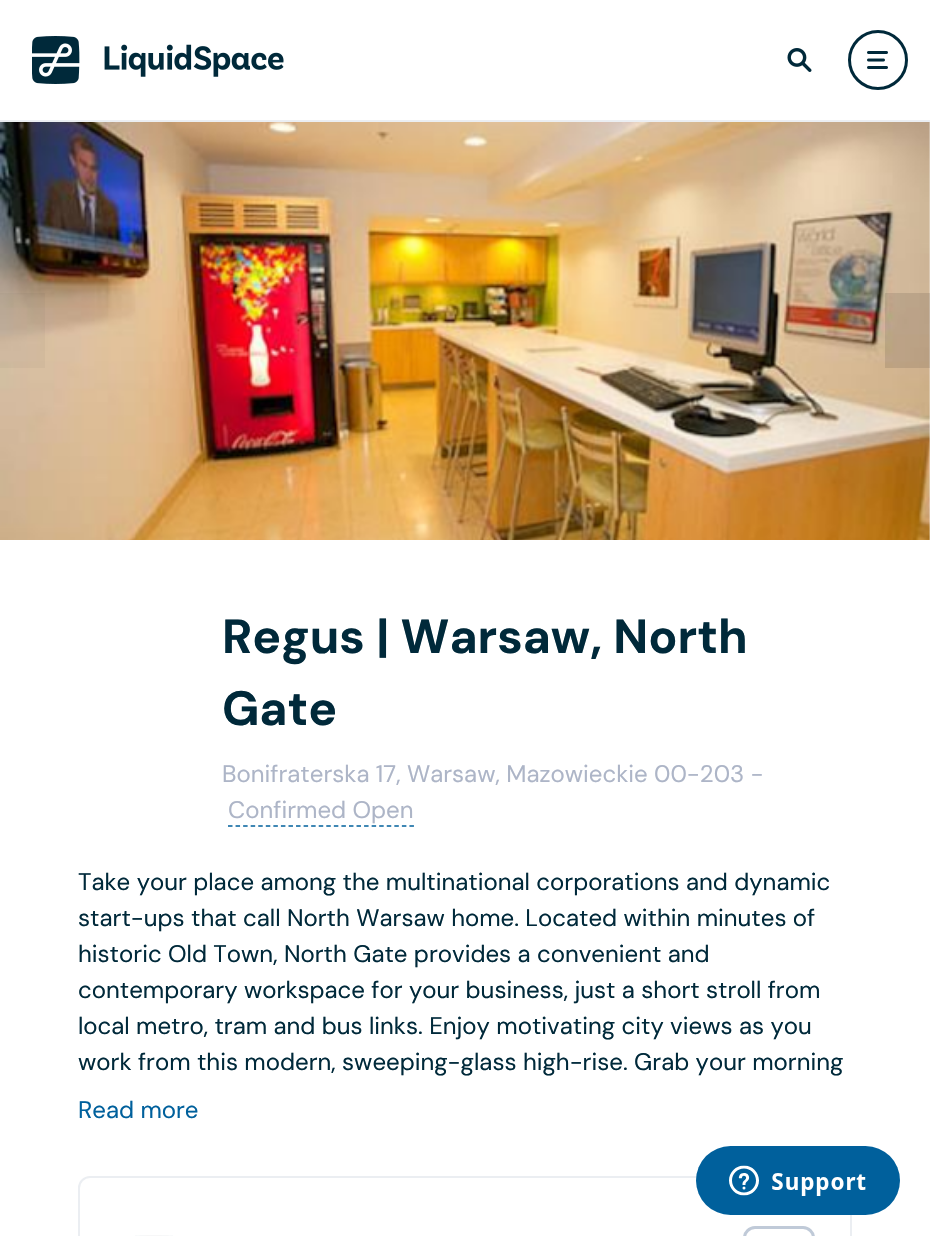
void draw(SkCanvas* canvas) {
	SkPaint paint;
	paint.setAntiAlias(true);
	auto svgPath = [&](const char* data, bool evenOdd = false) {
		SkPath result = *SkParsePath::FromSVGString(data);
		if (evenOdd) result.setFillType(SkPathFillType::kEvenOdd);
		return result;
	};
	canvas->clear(0xffffffff);
	paint.setColor(0xffebeef2);
	canvas->drawRect(SkRect::MakeXYWH(0, 120, 930, 2), paint);
	canvas->drawImageRect(SkImages::DeferredFromEncodedData(SkData::MakeFromFileName("img1.png")), SkRect::MakeXYWH(32, 36, 252, 48), SkSamplingOptions());
	canvas->drawImageRect(SkImages::DeferredFromEncodedData(SkData::MakeFromFileName("img2.png")), SkRect::MakeXYWH(787, 48, 25, 24), SkSamplingOptions());
	paint.setStroke(true);
	paint.setStrokeWidth(3);
	paint.setColor(0xff00293a);
	canvas->drawCircle(878, 60, 28.5, paint);
	canvas->drawImageRect(SkImages::DeferredFromEncodedData(SkData::MakeFromFileName("img3.png")), SkRect::MakeXYWH(867, 51, 21, 18), SkSamplingOptions());
	canvas->drawImageRect(SkImages::DeferredFromEncodedData(SkData::MakeFromFileName("img4.png")), SkRect::MakeXYWH(0, 122, 930, 418), SkSamplingOptions());
	paint.setStroke(false);
	paint.setColor(0x08000000);
	canvas->drawRect(SkRect::MakeXYWH(0, 293, 45, 75), paint);
	paint.setColor(0x1a000000);
	canvas->drawRect(SkRect::MakeXYWH(885, 293, 45, 75), paint);
	SkFont f1(fontMgr->matchFamilyStyle("DM Sans", SkFontStyle::Bold()), 48);
	f1.setSubpixel(true);
	paint.setColor(0xff00293a);
	canvas->drawString("Regus | Warsaw, North", 222, 653, f1, paint);
	canvas->drawString("Gate", 222, 725, f1, paint);
	SkFont f2(fontMgr->matchFamilyStyle("DM Sans", SkFontStyle::Normal()), 24);
	f2.setSubpixel(true);
	paint.setColor(0xffadb5c7);
	canvas->drawString("Bonifraterska 17, Warsaw, Mazowieckie 00-203 -", 222, 782, f2, paint);
	canvas->drawString("Confirmed Open", 228, 818, f2, paint);
	paint.setStroke(true);
	paint.setStrokeWidth(1.5);
	paint.setColor(0xff00609c);
	paint.setPathEffect(SkDashPathEffect::Make({{4.5f, 3.06f}}, 0));
	canvas->drawPath(svgPath("M228 826H414"), paint);
	paint.setPathEffect(nullptr);
	paint.setStroke(false);
	paint.setColor(0xff00293a);
	canvas->drawString("Take your place among the multinational corporations and dynamic", 78, 890, f2, paint);
	canvas->drawString("start-ups that call North Warsaw home. Located within minutes of", 78, 926, f2, paint);
	canvas->drawString("historic Old Town, North Gate provides a convenient and", 78, 962, f2, paint);
	canvas->drawString("contemporary workspace for your business, just a short stroll from", 78, 998, f2, paint);
	canvas->drawString("local metro, tram and bus links. Enjoy motivating city views as you", 78, 1034, f2, paint);
	canvas->drawString("work from this modern, sweeping-glass high-rise. Grab your morning", 78, 1070, f2, paint);
	paint.setColor(0xff00609c);
	canvas->drawString("Read more", 78, 1118, f2, paint);
	paint.setStroke(true);
	paint.setStrokeWidth(2);
	paint.setColor(0xffebeef2);
	canvas->drawRoundRect(SkRect::MakeXYWH(79, 1177, 772, 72), 11, 11, paint);
	canvas->drawImageRect(SkImages::DeferredFromEncodedData(SkData::MakeFromFileName("img5.png")), SkRect::MakeXYWH(135, 1235, 38, 1), SkSamplingOptions());
	paint.setStrokeWidth(3);
	paint.setColor(0xffc0cad8);
	canvas->drawRoundRect(SkRect::MakeXYWH(744.5, 1227.5, 69, 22), 10.5, 10.5, paint);
	canvas->drawImageRect(SkImages::DeferredFromEncodedData(SkData::MakeFromFileName("img6.png")), SkRect::MakeXYWH(696, 1146, 204, 69), SkSamplingOptions());
}
